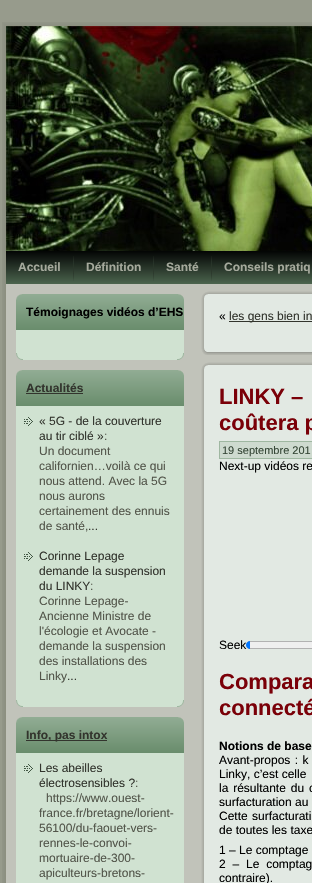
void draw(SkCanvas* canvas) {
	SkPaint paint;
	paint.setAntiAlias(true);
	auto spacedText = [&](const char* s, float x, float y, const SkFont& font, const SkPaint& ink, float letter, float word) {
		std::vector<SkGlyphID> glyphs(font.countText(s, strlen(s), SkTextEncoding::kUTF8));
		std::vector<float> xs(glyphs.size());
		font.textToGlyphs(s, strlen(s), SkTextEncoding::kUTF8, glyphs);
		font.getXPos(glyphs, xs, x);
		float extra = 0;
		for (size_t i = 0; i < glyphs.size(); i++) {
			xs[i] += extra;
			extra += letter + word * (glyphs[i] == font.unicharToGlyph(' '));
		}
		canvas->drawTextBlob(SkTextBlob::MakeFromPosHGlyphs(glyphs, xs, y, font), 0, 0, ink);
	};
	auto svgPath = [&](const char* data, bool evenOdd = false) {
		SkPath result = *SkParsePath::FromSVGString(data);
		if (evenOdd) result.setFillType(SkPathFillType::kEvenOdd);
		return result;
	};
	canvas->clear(0xff979b8c);
	canvas->drawImageRect(SkImages::DeferredFromEncodedData(SkData::MakeFromFileName("img1.png")), SkRect::MakeXYWH(2, 22, 19, 19), SkSamplingOptions());
	canvas->drawImageRect(SkImages::DeferredFromEncodedData(SkData::MakeFromFileName("img2.png")), SkRect::MakeXYWH(21, 22, 291, 4), SkSamplingOptions());
	canvas->drawImageRect(SkImages::DeferredFromEncodedData(SkData::MakeFromFileName("img3.png")), SkRect::MakeXYWH(2, 41, 19, 842), SkSamplingOptions());
	canvas->drawImageRect(SkImages::DeferredFromEncodedData(SkData::MakeFromFileName("img4.png")), SkRect::MakeXYWH(6, 26, 306, 225), SkSamplingOptions());
	canvas->drawImageRect(SkImages::DeferredFromEncodedData(SkData::MakeFromFileName("img5.png")), SkRect::MakeXYWH(6, 251, 306, 33), SkSamplingOptions());
	SkFont f1(fontMgr->matchFamilyStyle("Liberation Sans", SkFontStyle::Bold()), 12);
	f1.setSubpixel(true);
	paint.setColor(0xffa6aa9d);
	canvas->drawString("Accueil", 18, 271, f1, paint);
	canvas->drawImageRect(SkImages::DeferredFromEncodedData(SkData::MakeFromFileName("img6.png")), SkRect::MakeXYWH(73, 256, 1, 25), SkSamplingOptions());
	canvas->drawString("Définition", 86, 271, f1, paint);
	canvas->drawImageRect(SkImages::DeferredFromEncodedData(SkData::MakeFromFileName("img6.png")), SkRect::MakeXYWH(153, 256, 1, 25), SkSamplingOptions());
	canvas->drawString("Santé", 166, 271, f1, paint);
	canvas->drawImageRect(SkImages::DeferredFromEncodedData(SkData::MakeFromFileName("img6.png")), SkRect::MakeXYWH(211, 256, 1, 25), SkSamplingOptions());
	canvas->drawString("Conseils pratiq", 224, 271, f1, paint);
	paint.setColor(0xffc1c3ba);
	canvas->drawRect(SkRect::MakeXYWH(21, 284, 291, 599), paint);
	canvas->drawImageRect(SkImages::DeferredFromEncodedData(SkData::MakeFromFileName("img7.png")), SkRect::MakeXYWH(16, 294, 162, 36), SkSamplingOptions());
	canvas->drawImageRect(SkImages::DeferredFromEncodedData(SkData::MakeFromFileName("img8.png")), SkRect::MakeXYWH(178, 294, 6, 36), SkSamplingOptions());
	paint.setColor(0xff000000);
	canvas->drawString("Témoignages vidéos d’EHS", 26, 316, f1, paint);
	paint.setColor(0xffd0e2d1);
	canvas->drawRect(SkRect::MakeXYWH(16, 330, 7, 23), paint);
	canvas->drawRect(SkRect::MakeXYWH(23, 330, 161, 7), paint);
	canvas->drawRect(SkRect::MakeXYWH(23, 337, 161, 16), paint);
	canvas->drawImageRect(SkImages::DeferredFromEncodedData(SkData::MakeFromFileName("img9.png")), SkRect::MakeXYWH(16, 353, 7, 7), SkSamplingOptions());
	canvas->drawRect(SkRect::MakeXYWH(23, 353, 154, 7), paint);
	canvas->drawImageRect(SkImages::DeferredFromEncodedData(SkData::MakeFromFileName("img10.png")), SkRect::MakeXYWH(177, 353, 7, 7), SkSamplingOptions());
	canvas->drawImageRect(SkImages::DeferredFromEncodedData(SkData::MakeFromFileName("img7.png")), SkRect::MakeXYWH(16, 370, 162, 36), SkSamplingOptions());
	canvas->drawImageRect(SkImages::DeferredFromEncodedData(SkData::MakeFromFileName("img8.png")), SkRect::MakeXYWH(178, 370, 6, 36), SkSamplingOptions());
	paint.setColor(0xff32342d);
	canvas->drawString("Actualités", 26, 392, f1, paint);
	canvas->drawRect(SkRect::MakeXYWH(26, 393, 57, 1), paint);
	paint.setColor(0xffd0e2d1);
	canvas->drawRect(SkRect::MakeXYWH(16, 406, 7, 294), paint);
	canvas->drawRect(SkRect::MakeXYWH(23, 406, 161, 7), paint);
	canvas->drawRect(SkRect::MakeXYWH(23, 413, 161, 287), paint);
	canvas->drawImageRect(SkImages::DeferredFromEncodedData(SkData::MakeFromFileName("img11.png")), SkRect::MakeXYWH(24, 417, 9, 9), SkSamplingOptions());
	SkFont f2(fontMgr->matchFamilyStyle("Liberation Sans", SkFontStyle::Normal()), 12);
	f2.setSubpixel(true);
	paint.setColor(0xff32342d);
	canvas->drawString("« 5G - de la couverture", 39, 425, f2, paint);
	canvas->drawString("au tir ciblé »", 39, 440, f2, paint);
	paint.setColor(0xff52554a);
	canvas->drawString(":", 104, 440, f2, paint);
	canvas->drawString("Un document", 39, 455, f2, paint);
	canvas->drawString("californien…voilà ce qui", 39, 470, f2, paint);
	canvas->drawString("nous attend. Avec la 5G", 39, 485, f2, paint);
	canvas->drawString("nous aurons", 39, 500, f2, paint);
	canvas->drawString("certainement des ennuis", 39, 515, f2, paint);
	canvas->drawString("de santé,", 39, 530, f2, paint);
	paint.setColor(0xff32342d);
	canvas->drawString("...", 88, 530, f2, paint);
	canvas->drawImageRect(SkImages::DeferredFromEncodedData(SkData::MakeFromFileName("img11.png")), SkRect::MakeXYWH(24, 552, 9, 9), SkSamplingOptions());
	canvas->drawString("Corinne Lepage", 39, 560, f2, paint);
	canvas->drawString("demande la suspension", 39, 575, f2, paint);
	canvas->drawString("du LINKY", 39, 590, f2, paint);
	paint.setColor(0xff52554a);
	canvas->drawString(":", 90, 590, f2, paint);
	canvas->drawString("Corinne Lepage-", 39, 605, f2, paint);
	canvas->drawString("Ancienne Ministre de", 39, 620, f2, paint);
	canvas->drawString("l'écologie et Avocate -", 39, 635, f2, paint);
	canvas->drawString("demande la suspension", 39, 650, f2, paint);
	canvas->drawString("des installations des", 39, 665, f2, paint);
	canvas->drawString("Linky", 39, 680, f2, paint);
	paint.setColor(0xff32342d);
	canvas->drawString("...", 67, 680, f2, paint);
	canvas->drawImageRect(SkImages::DeferredFromEncodedData(SkData::MakeFromFileName("img9.png")), SkRect::MakeXYWH(16, 700, 7, 7), SkSamplingOptions());
	paint.setColor(0xffd0e2d1);
	canvas->drawRect(SkRect::MakeXYWH(23, 700, 154, 7), paint);
	canvas->drawImageRect(SkImages::DeferredFromEncodedData(SkData::MakeFromFileName("img10.png")), SkRect::MakeXYWH(177, 700, 7, 7), SkSamplingOptions());
	canvas->drawImageRect(SkImages::DeferredFromEncodedData(SkData::MakeFromFileName("img7.png")), SkRect::MakeXYWH(16, 717, 162, 36), SkSamplingOptions());
	canvas->drawImageRect(SkImages::DeferredFromEncodedData(SkData::MakeFromFileName("img8.png")), SkRect::MakeXYWH(178, 717, 6, 36), SkSamplingOptions());
	paint.setColor(0xff32342d);
	canvas->drawRect(SkRect::MakeXYWH(26, 740, 81, 1), paint);
	canvas->drawString("Info, pas intox", 26, 739, f1, paint);
	paint.setColor(0xffd0e2d1);
	canvas->drawRect(SkRect::MakeXYWH(16, 753, 7, 130), paint);
	canvas->drawRect(SkRect::MakeXYWH(23, 753, 161, 7), paint);
	canvas->drawRect(SkRect::MakeXYWH(23, 760, 161, 123), paint);
	canvas->drawImageRect(SkImages::DeferredFromEncodedData(SkData::MakeFromFileName("img11.png")), SkRect::MakeXYWH(24, 764, 9, 9), SkSamplingOptions());
	paint.setColor(0xff32342d);
	canvas->drawString("Les abeilles", 39, 772, f2, paint);
	canvas->drawString("électrosensibles ?", 39, 787, f2, paint);
	paint.setColor(0xff52554a);
	canvas->drawString(":", 135, 787, f2, paint);
	canvas->drawString("https://www.ouest-", 46, 802, f2, paint);
	canvas->drawString("france.fr/bretagne/lorient-", 39, 817, f2, paint);
	canvas->drawString("56100/du-faouet-vers-", 39, 832, f2, paint);
	canvas->drawString("rennes-le-convoi-", 39, 847, f2, paint);
	canvas->drawString("mortuaire-de-300-", 39, 862, f2, paint);
	canvas->drawString("apiculteurs-bretons-", 39, 877, f2, paint);
	canvas->drawImageRect(SkImages::DeferredFromEncodedData(SkData::MakeFromFileName("img12.png")), SkRect::MakeXYWH(201, 291, 16, 16), SkSamplingOptions());
	canvas->drawImageRect(SkImages::DeferredFromEncodedData(SkData::MakeFromFileName("img13.png")), SkRect::MakeXYWH(217, 291, 95, 16), SkSamplingOptions());
	canvas->drawImageRect(SkImages::DeferredFromEncodedData(SkData::MakeFromFileName("img14.png")), SkRect::MakeXYWH(201, 307, 16, 32), SkSamplingOptions());
	paint.setColor(0xffe2e9e3);
	canvas->drawRect(SkRect::MakeXYWH(217, 307, 95, 32), paint);
	paint.setColor(0xff000000);
	canvas->drawString("«", 219, 320, f2, paint);
	paint.setColor(0xff32342d);
	canvas->drawRect(SkRect::MakeXYWH(229, 321, 83, 1), paint);
	canvas->drawString("les gens bien in", 229, 320, f2, paint);
	canvas->drawImageRect(SkImages::DeferredFromEncodedData(SkData::MakeFromFileName("img15.png")), SkRect::MakeXYWH(201, 339, 16, 16), SkSamplingOptions());
	canvas->drawImageRect(SkImages::DeferredFromEncodedData(SkData::MakeFromFileName("img16.png")), SkRect::MakeXYWH(217, 339, 95, 16), SkSamplingOptions());
	canvas->drawImageRect(SkImages::DeferredFromEncodedData(SkData::MakeFromFileName("img12.png")), SkRect::MakeXYWH(201, 362, 16, 16), SkSamplingOptions());
	canvas->drawImageRect(SkImages::DeferredFromEncodedData(SkData::MakeFromFileName("img13.png")), SkRect::MakeXYWH(217, 362, 95, 16), SkSamplingOptions());
	canvas->drawImageRect(SkImages::DeferredFromEncodedData(SkData::MakeFromFileName("img17.png")), SkRect::MakeXYWH(201, 378, 16, 505), SkSamplingOptions());
	paint.setColor(0xffe2e9e3);
	canvas->drawRect(SkRect::MakeXYWH(217, 378, 95, 505), paint);
	SkFont f3(fontMgr->matchFamilyStyle("Liberation Sans", SkFontStyle::Bold()), 22);
	f3.setSubpixel(true);
	paint.setColor(0xff7a0008);
	canvas->drawString("LINKY –", 219, 404, f3, paint);
	canvas->drawString("coûtera p", 219, 430, f3, paint);
	paint.setColor(0xffcedacf);
	canvas->drawRect(SkRect::MakeXYWH(219.5, 441.5, 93, 17), paint);
	paint.setStroke(true);
	paint.setStrokeWidth(1);
	paint.setColor(0xff9fb7a1);
	canvas->drawRect(SkRect::MakeXYWH(219.5, 441.5, 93, 17), paint);
	SkFont f4(fontMgr->matchFamilyStyle("Liberation Sans", SkFontStyle::Normal()), 11);
	f4.setSubpixel(true);
	paint.setStroke(false);
	paint.setColor(0xff354636);
	canvas->drawString("19 septembre 201", 222, 454, f4, paint);
	paint.setColor(0xff000000);
	canvas->drawString("Next-up vidéos re", 219, 470, f2, paint);
	canvas->drawString("Seek", 219, 649, f2, paint);
	paint.setColor(0xffefefef);
	canvas->drawRoundRect(SkRect::MakeXYWH(246.5, 641.5, 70, 7), 3.5, 3.5, paint);
	paint.setStroke(true);
	paint.setColor(0xffb2b2b2);
	canvas->drawRoundRect(SkRect::MakeXYWH(246.5, 641.5, 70, 7), 3.5, 3.5, paint);
	paint.setStroke(false);
	paint.setColor(0xff0075ff);
	canvas->drawPath(svgPath("M250 641V649C248 649 246 647 246 645C246 643 248 641 250 641Z"), paint);
	paint.setColor(0xff7a0008);
	canvas->drawString("Compara", 219, 689, f3, paint);
	canvas->drawString("connecté", 219, 715, f3, paint);
	paint.setColor(0xff000000);
	canvas->drawString("Notions de base", 219, 750, f1, paint);
	spacedText("Avant-propos : k", 219, 764, f2, paint, 0, 1);
	canvas->drawString("Linky, c’est celle", 219, 778, f2, paint);
	spacedText("la résultante du c", 219, 792, f2, paint, 0, 1.5);
	canvas->drawString("surfacturation au", 219, 806, f2, paint);
	spacedText("Cette surfacturati", 219, 820, f2, paint, 0, 1);
	canvas->drawString("de toutes les taxe", 219, 834, f2, paint);
	canvas->drawString("1 – Le comptage", 219, 854, f2, paint);
	spacedText("2 – Le comptag", 219, 868, f2, paint, 0, 3.5);
	canvas->drawString("contraire).", 219, 882, f2, paint);
}
